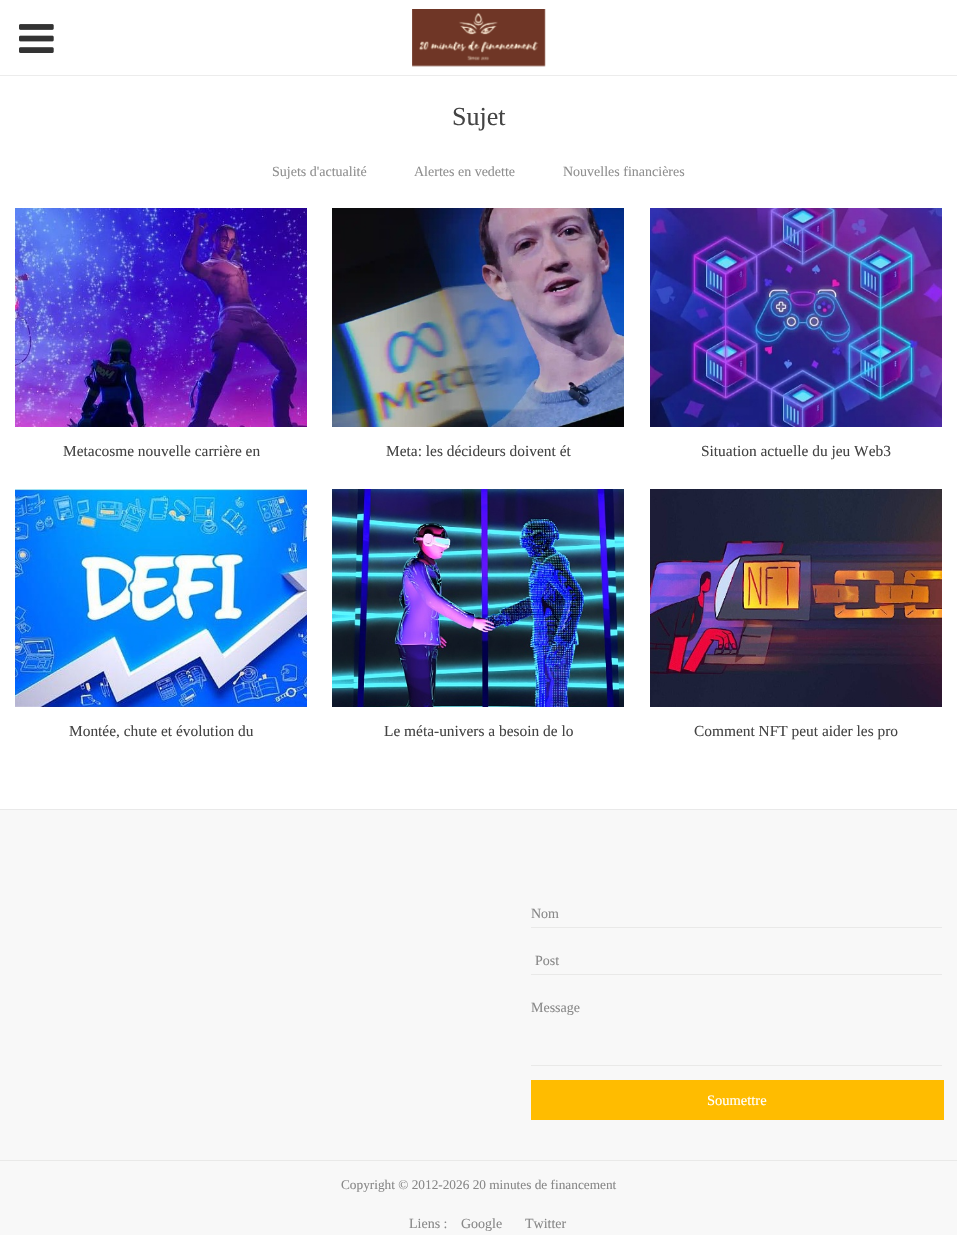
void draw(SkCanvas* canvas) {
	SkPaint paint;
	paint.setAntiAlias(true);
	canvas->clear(0xffffffff);
	paint.setColor(0xffececec);
	canvas->drawRect(SkRect::MakeXYWH(0, 75, 957, 1), paint);
	canvas->drawImageRect(SkImages::DeferredFromEncodedData(SkData::MakeFromFileName("img1.png")), SkRect::MakeXYWH(19, 24, 35, 29), SkSamplingOptions());
	canvas->drawImageRect(SkImages::DeferredFromEncodedData(SkData::MakeFromFileName("img2.png")), SkRect::MakeXYWH(412, 9, 134, 58), SkSamplingOptions());
	SkFont f1(fontMgr->matchFamilyStyle("Liberation Serif", SkFontStyle::Normal()), 26);
	f1.setSubpixel(true);
	paint.setColor(0xff444444);
	canvas->drawString("Sujet", 452, 125, f1, paint);
	SkFont f2(fontMgr->matchFamilyStyle("Liberation Serif", SkFontStyle::Normal()), 14);
	f2.setSubpixel(true);
	paint.setColor(0xff8f8f8f);
	canvas->drawString("Sujets d'actualité", 272, 176, f2, paint);
	canvas->drawString("Alertes en vedette", 414, 176, f2, paint);
	canvas->drawString("Nouvelles financières", 563, 176, f2, paint);
	canvas->drawImageRect(SkImages::DeferredFromEncodedData(SkData::MakeFromFileName("img3.png")), SkRect::MakeXYWH(15, 208, 292, 219), SkSamplingOptions());
	SkFont f3(fontMgr->matchFamilyStyle("Liberation Serif", SkFontStyle::Normal()), 15.4);
	f3.setSubpixel(true);
	paint.setColor(0xff444444);
	canvas->drawString("Metacosme nouvelle carrière en", 63, 456, f3, paint);
	canvas->drawImageRect(SkImages::DeferredFromEncodedData(SkData::MakeFromFileName("img4.png")), SkRect::MakeXYWH(332, 208, 292, 219), SkSamplingOptions());
	canvas->drawString("Meta: les décideurs doivent ét", 386, 456, f3, paint);
	canvas->drawImageRect(SkImages::DeferredFromEncodedData(SkData::MakeFromFileName("img5.png")), SkRect::MakeXYWH(650, 208, 292, 219), SkSamplingOptions());
	canvas->drawString("Situation actuelle du jeu Web3", 701, 456, f3, paint);
	canvas->drawImageRect(SkImages::DeferredFromEncodedData(SkData::MakeFromFileName("img6.png")), SkRect::MakeXYWH(15, 489, 292, 218), SkSamplingOptions());
	canvas->drawString("Montée, chute et évolution du", 69, 736, f3, paint);
	canvas->drawImageRect(SkImages::DeferredFromEncodedData(SkData::MakeFromFileName("img7.png")), SkRect::MakeXYWH(332, 489, 292, 218), SkSamplingOptions());
	canvas->drawString("Le méta-univers a besoin de lo", 384, 736, f3, paint);
	canvas->drawImageRect(SkImages::DeferredFromEncodedData(SkData::MakeFromFileName("img8.png")), SkRect::MakeXYWH(650, 489, 292, 218), SkSamplingOptions());
	canvas->drawString("Comment NFT peut aider les pro", 694, 736, f3, paint);
	paint.setColor(0xfff8f8f8);
	canvas->drawRect(SkRect::MakeXYWH(0, 810, 957, 425), paint);
	paint.setColor(0xffe9e9e9);
	canvas->drawRect(SkRect::MakeXYWH(0, 809, 957, 1), paint);
	paint.setColor(0xffe9e9e8);
	canvas->drawRect(SkRect::MakeXYWH(531, 927, 411, 1), paint);
	paint.setColor(0xff888888);
	canvas->drawString("Nom", 531, 918, f2, paint);
	paint.setColor(0xffe9e9e8);
	canvas->drawRect(SkRect::MakeXYWH(531, 974, 411, 1), paint);
	paint.setColor(0xff888888);
	canvas->drawString("Post", 535, 965, f2, paint);
	paint.setColor(0xffe9e9e8);
	canvas->drawRect(SkRect::MakeXYWH(531, 1065, 411, 1), paint);
	paint.setColor(0xff888888);
	canvas->drawString("Message", 531, 1012, f2, paint);
	paint.setColor(0xffffbc00);
	canvas->drawRect(SkRect::MakeXYWH(531, 1080, 413, 40), paint);
	SkFont f4(fontMgr->matchFamilyStyle("Liberation Serif", SkFontStyle::Normal()), 14.5);
	f4.setSubpixel(true);
	paint.setColor(0xffffffff);
	canvas->drawString("Soumettre", 707, 1105, f4, paint);
	paint.setColor(0xffe9e9e8);
	canvas->drawRect(SkRect::MakeXYWH(0, 1160, 957, 1), paint);
	SkFont f5(fontMgr->matchFamilyStyle("Liberation Serif", SkFontStyle::Normal()), 13.3);
	f5.setSubpixel(true);
	paint.setColor(0xff888888);
	canvas->drawString("Copyright © 2012-2026 20 minutes de financement", 341, 1189, f5, paint);
	canvas->drawString("Liens :", 409, 1228, f2, paint);
	canvas->drawString("Google", 461, 1228, f2, paint);
	canvas->drawString("Twitter", 525, 1228, f2, paint);
}
